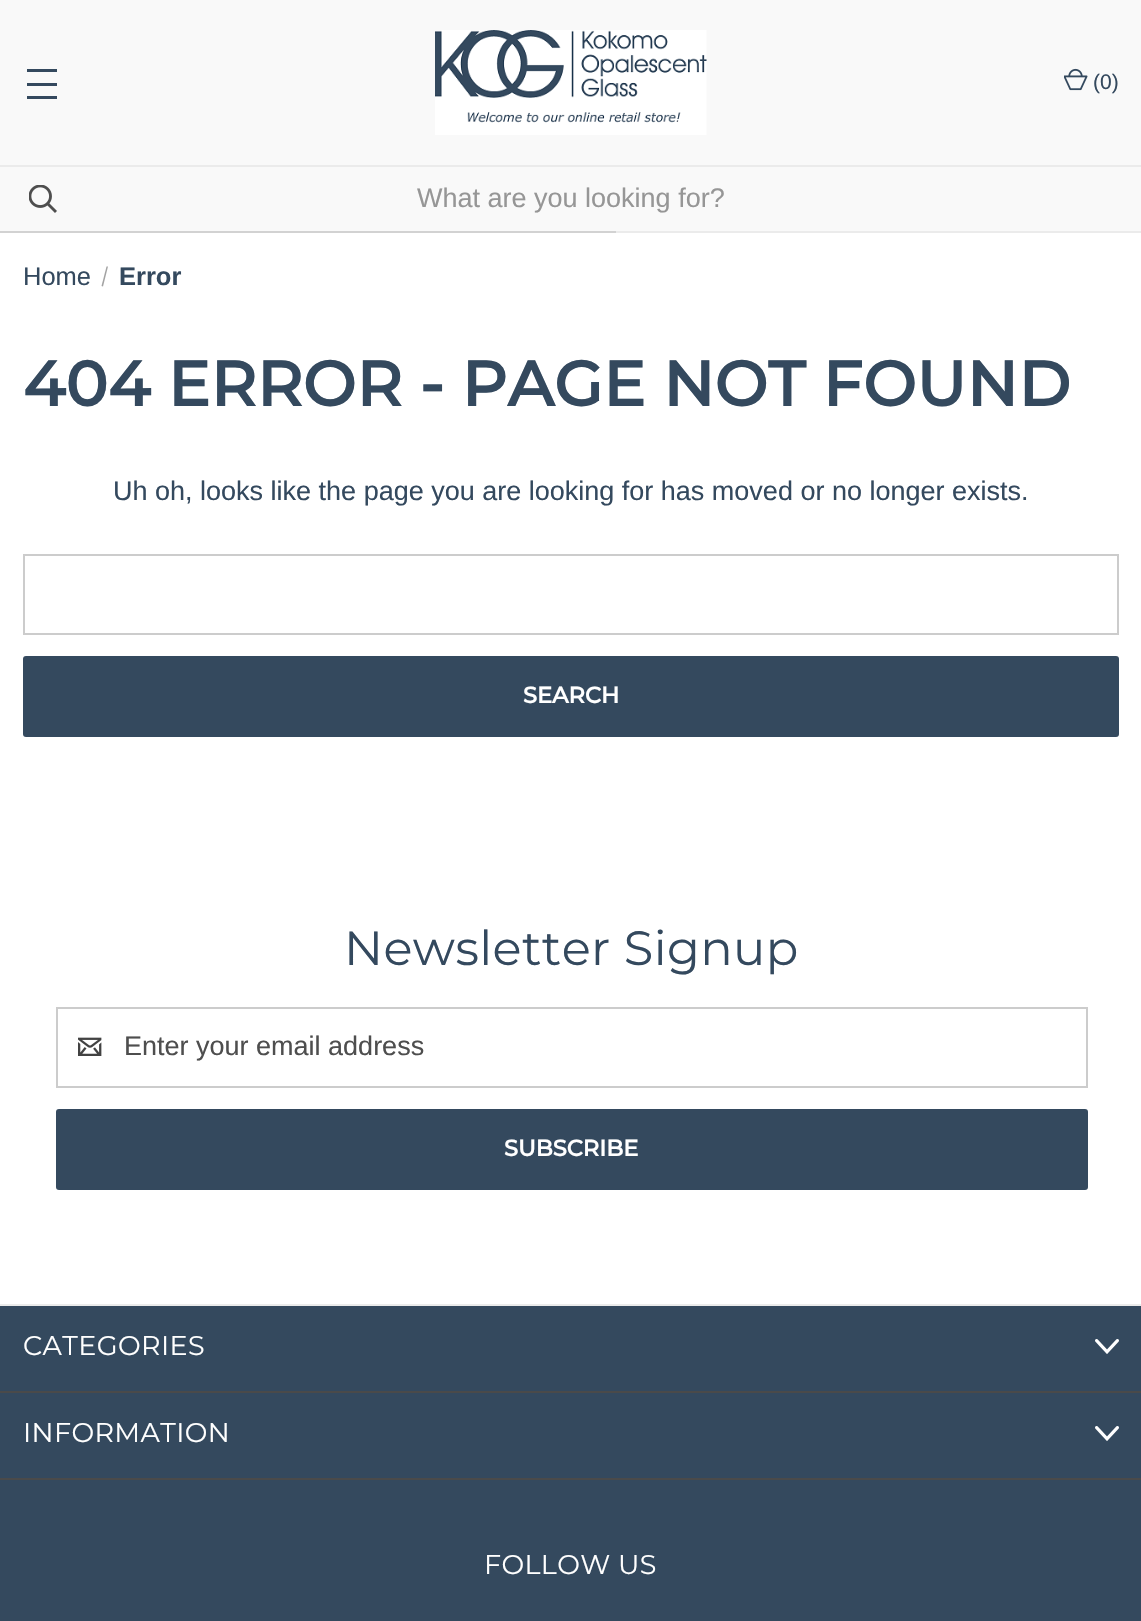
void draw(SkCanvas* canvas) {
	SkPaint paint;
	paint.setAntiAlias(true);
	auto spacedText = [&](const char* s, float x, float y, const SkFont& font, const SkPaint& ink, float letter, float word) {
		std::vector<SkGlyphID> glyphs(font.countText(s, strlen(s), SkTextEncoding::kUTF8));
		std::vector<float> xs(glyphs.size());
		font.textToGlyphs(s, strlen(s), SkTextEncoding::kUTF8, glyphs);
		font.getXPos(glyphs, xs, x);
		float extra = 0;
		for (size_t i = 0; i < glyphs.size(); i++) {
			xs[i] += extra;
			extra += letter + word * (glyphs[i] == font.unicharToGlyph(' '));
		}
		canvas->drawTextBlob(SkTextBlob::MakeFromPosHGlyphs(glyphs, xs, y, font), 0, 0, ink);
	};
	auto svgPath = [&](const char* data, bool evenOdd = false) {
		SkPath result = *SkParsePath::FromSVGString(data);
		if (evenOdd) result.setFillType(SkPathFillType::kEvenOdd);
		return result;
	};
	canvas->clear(0xffffffff);
	paint.setColor(0xfff9f9f9);
	canvas->drawRect(SkRect::MakeXYWH(0, 0, 1141, 231), paint);
	paint.setColor(0xffebebeb);
	canvas->drawRect(SkRect::MakeXYWH(616, 231, 525, 2), paint);
	paint.setColor(0xff34495e);
	canvas->drawRect(SkRect::MakeXYWH(27, 83, 30, 3), paint);
	canvas->drawRect(SkRect::MakeXYWH(27, 69, 30, 3), paint);
	canvas->drawRect(SkRect::MakeXYWH(27, 96, 30, 3), paint);
	canvas->drawImageRect(SkImages::DeferredFromEncodedData(SkData::MakeFromFileName("img1.png")), SkRect::MakeXYWH(435, 30, 272, 105), SkSamplingOptions());
	canvas->drawImageRect(SkImages::DeferredFromEncodedData(SkData::MakeFromFileName("img2.png")), SkRect::MakeXYWH(1064, 68, 24, 23), SkSamplingOptions());
	SkFont f1(fontMgr->matchFamilyStyle("Liberation Sans", SkFontStyle::Normal()), 21);
	f1.setSubpixel(true);
	canvas->drawString("(0)", 1093, 89, f1, paint);
	canvas->drawImageRect(SkImages::DeferredFromEncodedData(SkData::MakeFromFileName("img3.png")), SkRect::MakeXYWH(29, 185, 28, 28), SkSamplingOptions());
	paint.setColor(0xffebebeb);
	canvas->drawRect(SkRect::MakeXYWH(0, 165, 1141, 2), paint);
	SkFont f2(fontMgr->matchFamilyStyle("Liberation Sans", SkFontStyle::Normal()), 27);
	f2.setSubpixel(true);
	paint.setColor(0xff969696);
	canvas->drawString("What are you looking for?", 417, 207, f2, paint);
	paint.setColor(0xffd2d2d2);
	canvas->drawRect(SkRect::MakeXYWH(0, 231, 616, 2), paint);
	SkFont f3(fontMgr->matchFamilyStyle("Liberation Sans", SkFontStyle::Normal()), 25.5);
	f3.setSubpixel(true);
	paint.setColor(0xff34495e);
	canvas->drawString("Home", 23, 285, f3, paint);
	paint.setColor(0xffa3a3a3);
	canvas->drawPath(svgPath("M106.5 266.5H108L103 286.5L101.5 286Z"), paint);
	SkFont f4(fontMgr->matchFamilyStyle("Liberation Sans", SkFontStyle::Bold()), 25.5);
	f4.setSubpixel(true);
	paint.setColor(0xff34495e);
	canvas->drawString("Error", 119, 285, f4, paint);
	SkFont f5(fontMgr->matchFamilyStyle("Montserrat", SkFontStyle::Bold()), 63);
	f5.setSubpixel(true);
	spacedText("404 ERROR - PAGE NOT FOUND", 23, 406, f5, paint, 0.4, 0);
	canvas->drawString("Uh oh, looks like the page you are looking for has moved or no longer exists.", 113, 500, f2, paint);
	paint.setStroke(true);
	paint.setStrokeWidth(2);
	paint.setColor(0xffcccccc);
	canvas->drawRect(SkRect::MakeXYWH(24, 555, 1094, 79), paint);
	paint.setStroke(false);
	paint.setColor(0xff34495e);
	canvas->drawRoundRect(SkRect::MakeXYWH(23, 656, 1096, 81), 3, 3, paint);
	SkFont f6(fontMgr->matchFamilyStyle("Montserrat", SkFontStyle::Bold()), 22.5);
	f6.setSubpixel(true);
	paint.setColor(0xffffffff);
	canvas->drawString("SEARCH", 523, 703, f6, paint);
	SkFont f7(fontMgr->matchFamilyStyle("Montserrat", SkFontStyle::Normal()), 48);
	f7.setSubpixel(true);
	paint.setColor(0xff34495e);
	spacedText("Newsletter Signup", 344, 965, f7, paint, 0.4, 0);
	paint.setStroke(true);
	paint.setColor(0xffcccccc);
	canvas->drawRect(SkRect::MakeXYWH(57, 1008, 1030, 79), paint);
	canvas->drawImageRect(SkImages::DeferredFromEncodedData(SkData::MakeFromFileName("img4.png")), SkRect::MakeXYWH(78, 1037, 24, 19), SkSamplingOptions());
	paint.setStroke(false);
	paint.setColor(0xff4e4e4e);
	canvas->drawString("Enter your email address", 124, 1055, f2, paint);
	paint.setColor(0xff34495e);
	canvas->drawRoundRect(SkRect::MakeXYWH(56, 1109, 1032, 81), 3, 3, paint);
	paint.setColor(0xffffffff);
	canvas->drawString("SUBSCRIBE", 504, 1156, f6, paint);
	paint.setColor(0xff34495e);
	canvas->drawRect(SkRect::MakeXYWH(0, 1306, 1141, 315), paint);
	paint.setColor(0xffebebeb);
	canvas->drawRect(SkRect::MakeXYWH(0, 1304, 1141, 2), paint);
	paint.setColor(0xff4a4a4a);
	canvas->drawRect(SkRect::MakeXYWH(0, 1391, 1141, 2), paint);
	SkFont f8(fontMgr->matchFamilyStyle("Montserrat", SkFontStyle::Normal()), 27);
	f8.setSubpixel(true);
	paint.setColor(0xffffffff);
	spacedText("CATEGORIES", 23, 1355, f8, paint, 0.4, 0);
	canvas->drawImageRect(SkImages::DeferredFromEncodedData(SkData::MakeFromFileName("img5.png")), SkRect::MakeXYWH(1095, 1339, 24, 15), SkSamplingOptions());
	paint.setColor(0xff4a4a4a);
	canvas->drawRect(SkRect::MakeXYWH(0, 1478, 1141, 2), paint);
	paint.setColor(0xffffffff);
	spacedText("INFORMATION", 23, 1442, f8, paint, 0.4, 0);
	canvas->drawImageRect(SkImages::DeferredFromEncodedData(SkData::MakeFromFileName("img5.png")), SkRect::MakeXYWH(1095, 1426, 24, 15), SkSamplingOptions());
	spacedText("FOLLOW US", 484, 1574, f8, paint, 0.4, 0);
}
